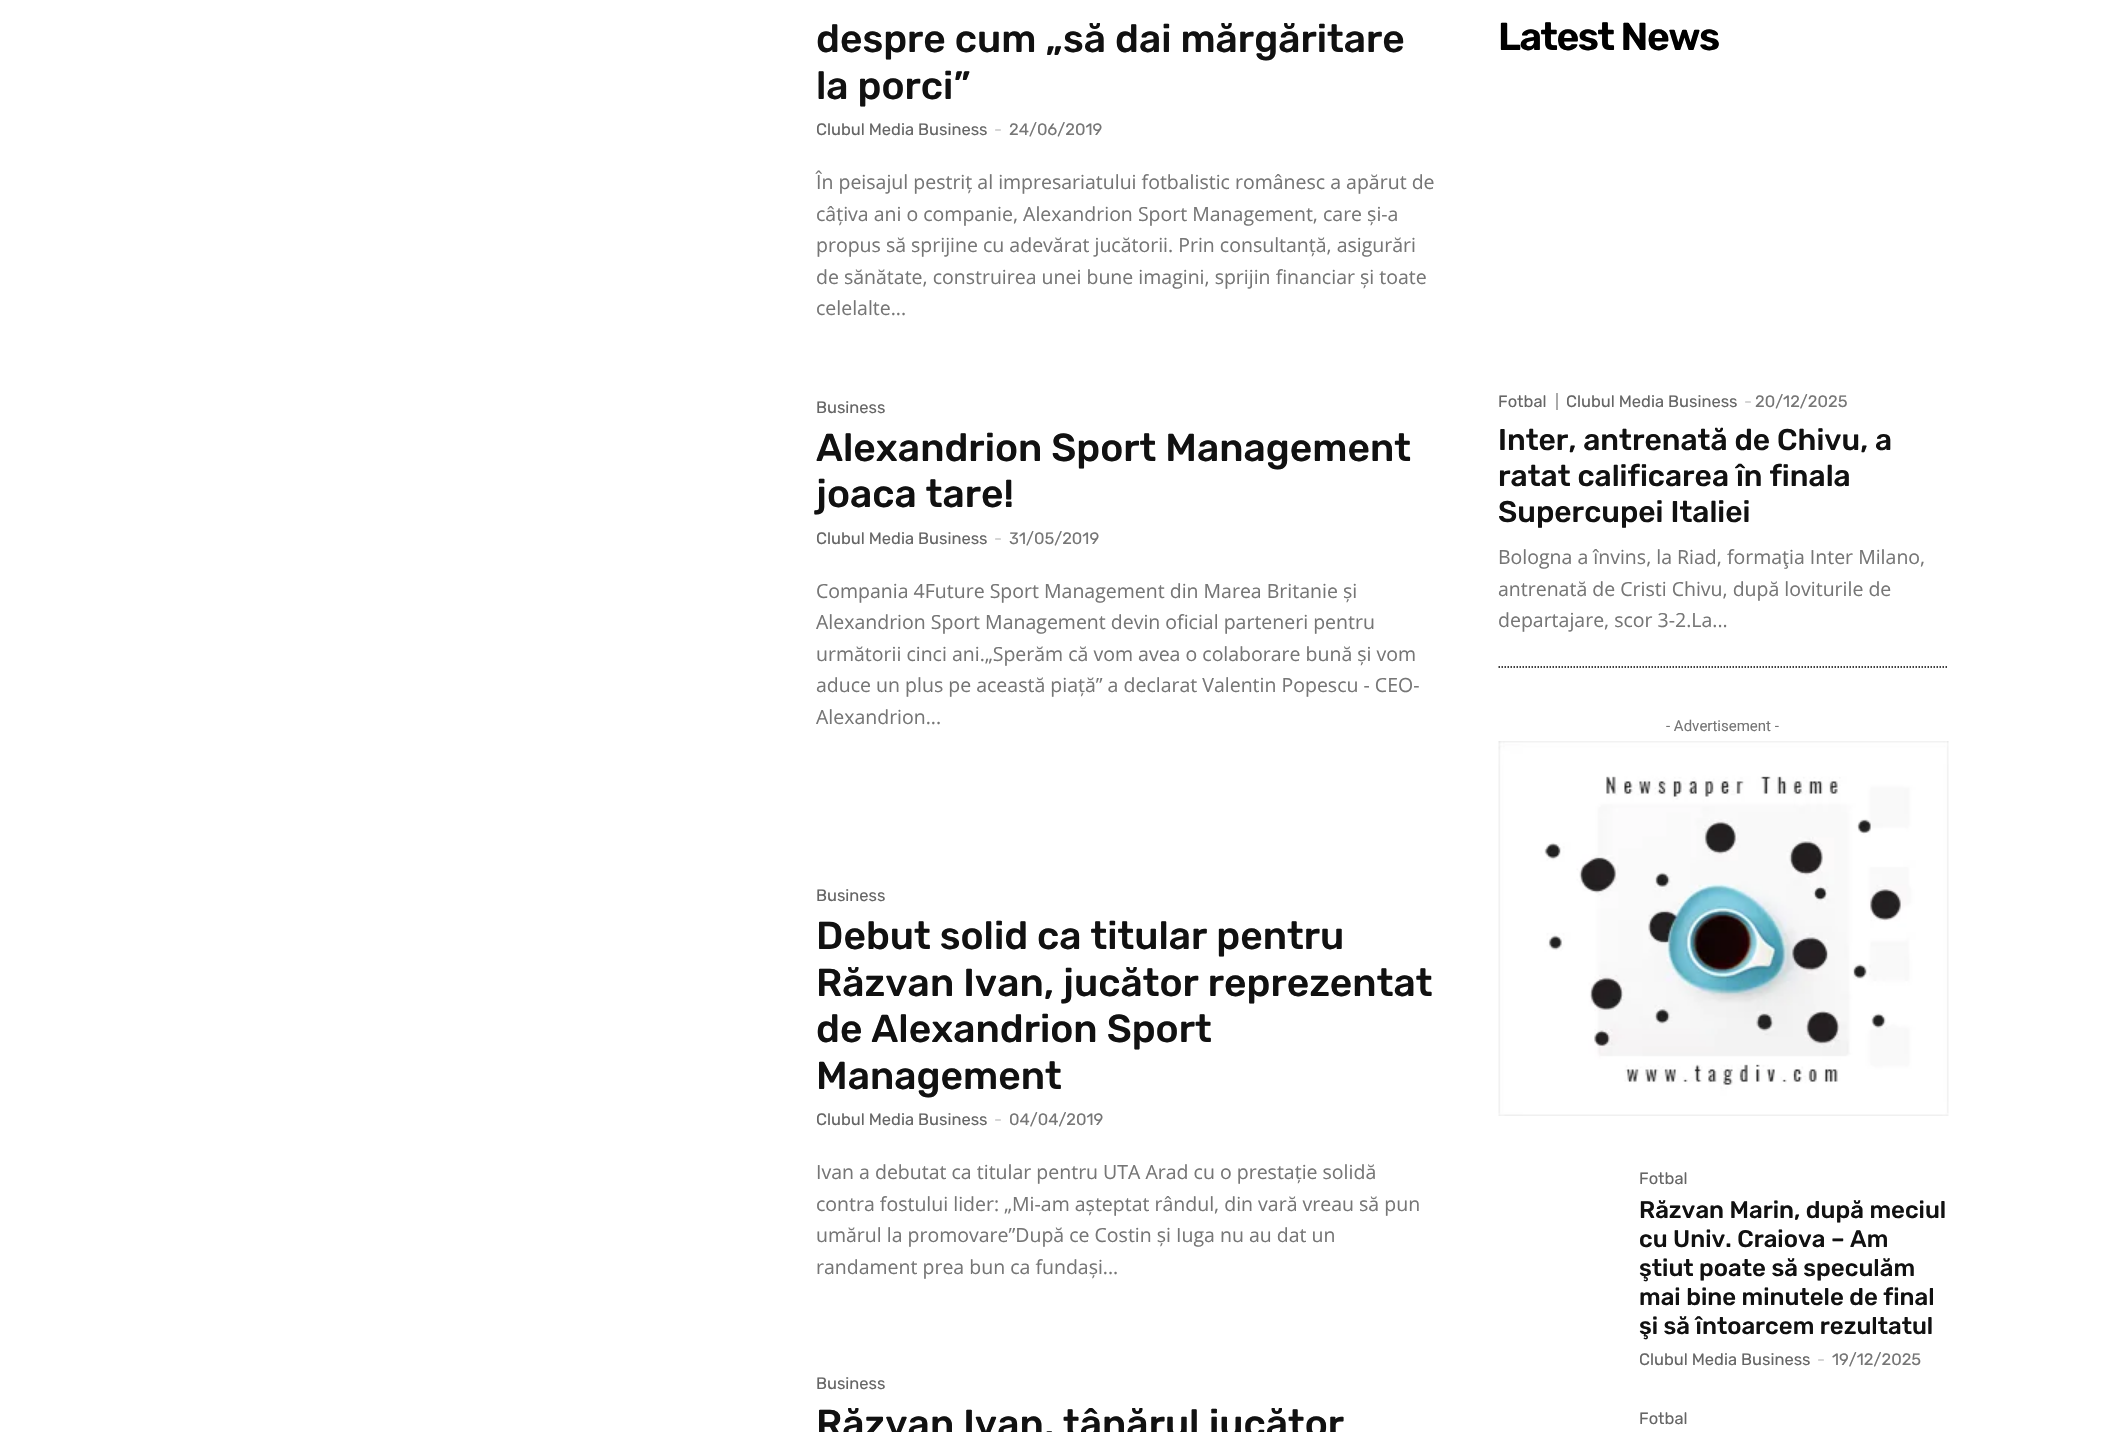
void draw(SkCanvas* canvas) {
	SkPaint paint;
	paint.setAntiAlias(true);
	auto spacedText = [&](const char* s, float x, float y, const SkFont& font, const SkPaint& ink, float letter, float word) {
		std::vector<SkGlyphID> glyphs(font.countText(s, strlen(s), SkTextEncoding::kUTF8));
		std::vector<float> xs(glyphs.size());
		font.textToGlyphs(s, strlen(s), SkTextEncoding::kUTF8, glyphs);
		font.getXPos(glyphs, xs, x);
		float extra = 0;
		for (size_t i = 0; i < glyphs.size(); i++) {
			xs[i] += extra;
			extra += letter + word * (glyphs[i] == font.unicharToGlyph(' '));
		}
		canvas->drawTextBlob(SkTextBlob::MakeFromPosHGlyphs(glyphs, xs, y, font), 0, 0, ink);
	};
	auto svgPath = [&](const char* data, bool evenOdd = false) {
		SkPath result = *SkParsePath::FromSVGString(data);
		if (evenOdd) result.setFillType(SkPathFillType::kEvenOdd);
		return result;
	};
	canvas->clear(0xffffffff);
	SkFont f1(fontMgr->matchFamilyStyle("Rubik", SkFontStyle(500, SkFontStyle::kNormal_Width, SkFontStyle::kUpright_Slant)), 39);
	f1.setSubpixel(true);
	paint.setColor(0xff111111);
	canvas->drawString("despre cum „să dai mărgăritare", 816, 52, f1, paint);
	canvas->drawString("la porci”", 816, 99, f1, paint);
	SkFont f2(fontMgr->matchFamilyStyle("Rubik", SkFontStyle::Normal()), 16.5);
	f2.setSubpixel(true);
	paint.setColor(0xff666666);
	canvas->drawString("Clubul Media Business", 816, 135, f2, paint);
	paint.setColor(0xffcccccc);
	canvas->drawString("-", 994, 135, f2, paint);
	paint.setColor(0xff767676);
	canvas->drawString("24/06/2019", 1009, 135, f2, paint);
	SkFont f3(fontMgr->matchFamilyStyle("Open Sans", SkFontStyle::Normal()), 19.5);
	f3.setSubpixel(true);
	canvas->drawString("În peisajul pestriț al impresariatului fotbalistic românesc a apărut de", 816, 189, f3, paint);
	canvas->drawString("câțiva ani o companie, Alexandrion Sport Management, care și-a", 816, 221, f3, paint);
	canvas->drawString("propus să sprijine cu adevărat jucătorii. Prin consultanță, asigurări", 816, 252, f3, paint);
	canvas->drawString("de sănătate, construirea unei bune imagini, sprijin financiar și toate", 816, 284, f3, paint);
	canvas->drawString("celelalte...", 816, 315, f3, paint);
	paint.setColor(0xff666666);
	canvas->drawString("Business", 816, 413, f2, paint);
	paint.setColor(0xff111111);
	canvas->drawString("Alexandrion Sport Management", 816, 461, f1, paint);
	canvas->drawString("joaca tare!", 816, 507, f1, paint);
	paint.setColor(0xff666666);
	canvas->drawString("Clubul Media Business", 816, 544, f2, paint);
	paint.setColor(0xffcccccc);
	canvas->drawString("-", 994, 544, f2, paint);
	paint.setColor(0xff767676);
	canvas->drawString("31/05/2019", 1009, 544, f2, paint);
	canvas->drawString("Compania 4Future Sport Management din Marea Britanie și", 816, 598, f3, paint);
	canvas->drawString("Alexandrion Sport Management devin oficial parteneri pentru", 816, 629, f3, paint);
	canvas->drawString("următorii cinci ani.„Sperăm că vom avea o colaborare bună și vom", 816, 661, f3, paint);
	canvas->drawString("aduce un plus pe această piață” a declarat Valentin Popescu - CEO-", 816, 692, f3, paint);
	canvas->drawString("Alexandrion...", 816, 724, f3, paint);
	paint.setColor(0xff666666);
	canvas->drawString("Business", 816, 901, f2, paint);
	paint.setColor(0xff111111);
	canvas->drawString("Debut solid ca titular pentru", 816, 949, f1, paint);
	canvas->drawString("Răzvan Ivan, jucător reprezentat", 816, 996, f1, paint);
	canvas->drawString("de Alexandrion Sport", 816, 1042, f1, paint);
	canvas->drawString("Management", 816, 1089, f1, paint);
	paint.setColor(0xff666666);
	canvas->drawString("Clubul Media Business", 816, 1125, f2, paint);
	paint.setColor(0xffcccccc);
	canvas->drawString("-", 994, 1125, f2, paint);
	paint.setColor(0xff767676);
	canvas->drawString("04/04/2019", 1009, 1125, f2, paint);
	canvas->drawString("Ivan a debutat ca titular pentru UTA Arad cu o prestație solidă", 816, 1179, f3, paint);
	canvas->drawString("contra fostului lider: „Mi-am așteptat rândul, din vară vreau să pun", 816, 1211, f3, paint);
	canvas->drawString("umărul la promovare”După ce Costin și Iuga nu au dat un", 816, 1242, f3, paint);
	canvas->drawString("randament prea bun ca fundași...", 816, 1274, f3, paint);
	paint.setColor(0xff666666);
	canvas->drawString("Business", 816, 1389, f2, paint);
	paint.setColor(0xff111111);
	canvas->drawString("Răzvan Ivan, tânărul jucător", 816, 1437, f1, paint);
	SkFont f4(fontMgr->matchFamilyStyle("Rubik", SkFontStyle(600, SkFontStyle::kNormal_Width, SkFontStyle::kUpright_Slant)), 39);
	f4.setSubpixel(true);
	paint.setColor(0xff000000);
	spacedText("Latest News", 1498, 50, f4, paint, -1.5, 0);
	paint.setStroke(true);
	paint.setStrokeWidth(1.5);
	paint.setPathEffect(SkDashPathEffect::Make({{1.5f, 1.5f}}, 0));
	canvas->drawPath(svgPath("M1498.5 667H1948.5"), paint);
	paint.setPathEffect(nullptr);
	paint.setStroke(false);
	paint.setColor(0xffaaaaaa);
	canvas->drawRect(SkRect::MakeXYWH(1556, 393, 2, 17), paint);
	paint.setColor(0xff666666);
	canvas->drawString("Fotbal", 1498, 407, f2, paint);
	canvas->drawString("Clubul Media Business", 1566, 407, f2, paint);
	paint.setColor(0xffcccccc);
	canvas->drawString("-", 1744, 407, f2, paint);
	paint.setColor(0xff767676);
	canvas->drawString("20/12/2025", 1755, 407, f2, paint);
	SkFont f5(fontMgr->matchFamilyStyle("Rubik", SkFontStyle(500, SkFontStyle::kNormal_Width, SkFontStyle::kUpright_Slant)), 30);
	f5.setSubpixel(true);
	paint.setColor(0xff111111);
	canvas->drawString("Inter, antrenată de Chivu, a", 1498, 450, f5, paint);
	canvas->drawString("ratat calificarea în finala", 1498, 486, f5, paint);
	canvas->drawString("Supercupei Italiei", 1498, 522, f5, paint);
	paint.setColor(0xff767676);
	canvas->drawString("Bologna a învins, la Riad, formaţia Inter Milano,", 1498, 564, f3, paint);
	canvas->drawString("antrenată de Cristi Chivu, după loviturile de", 1498, 596, f3, paint);
	canvas->drawString("departajare, scor 3-2.La...", 1498, 627, f3, paint);
	SkFont f6(fontMgr->matchFamilyStyle("Roboto", SkFontStyle::Normal()), 15);
	f6.setSubpixel(true);
	canvas->drawString("- Advertisement -", 1666, 731, f6, paint);
	canvas->drawImageRect(SkImages::DeferredFromEncodedData(SkData::MakeFromFileName("img1.png")), SkRect::MakeXYWH(1498, 741, 451, 375), SkSamplingOptions());
	paint.setColor(0xff666666);
	canvas->drawString("Fotbal", 1639, 1184, f2, paint);
	SkFont f7(fontMgr->matchFamilyStyle("Rubik", SkFontStyle(500, SkFontStyle::kNormal_Width, SkFontStyle::kUpright_Slant)), 24);
	f7.setSubpixel(true);
	paint.setColor(0xff111111);
	canvas->drawString("Răzvan Marin, după meciul", 1639, 1218, f7, paint);
	canvas->drawString("cu Univ. Craiova – Am", 1639, 1247, f7, paint);
	canvas->drawString("ştiut poate să speculăm", 1639, 1276, f7, paint);
	canvas->drawString("mai bine minutele de final", 1639, 1305, f7, paint);
	canvas->drawString("şi să întoarcem rezultatul", 1639, 1334, f7, paint);
	paint.setColor(0xff666666);
	canvas->drawString("Clubul Media Business", 1639, 1365, f2, paint);
	paint.setColor(0xffcccccc);
	canvas->drawString("-", 1817, 1365, f2, paint);
	paint.setColor(0xff767676);
	canvas->drawString("19/12/2025", 1832, 1365, f2, paint);
	paint.setColor(0xff666666);
	canvas->drawString("Fotbal", 1639, 1424, f2, paint);
}
